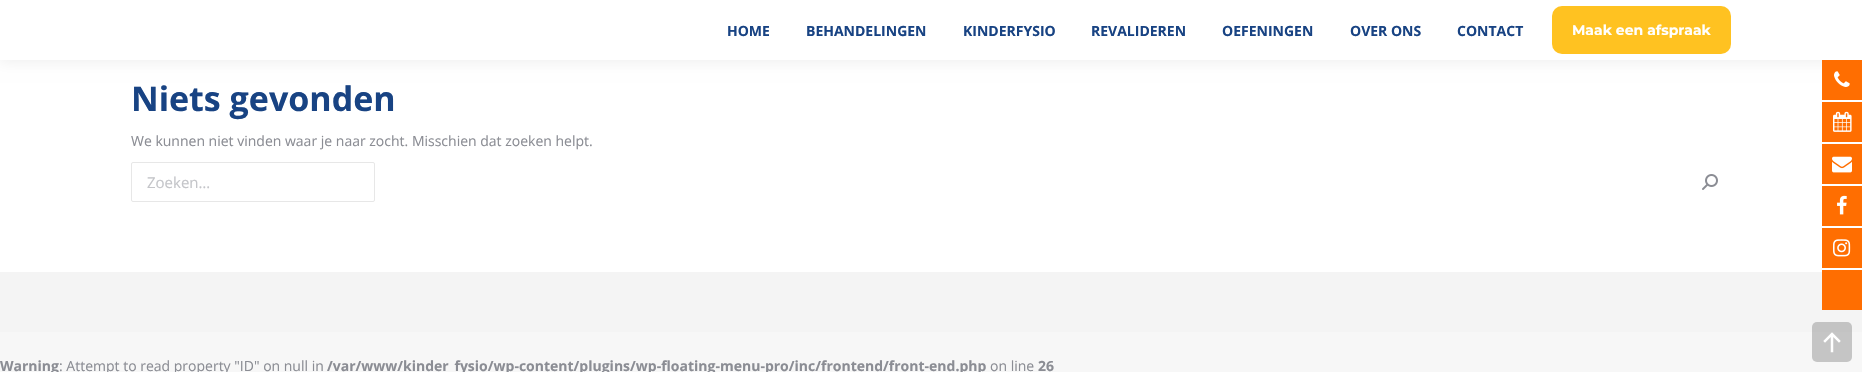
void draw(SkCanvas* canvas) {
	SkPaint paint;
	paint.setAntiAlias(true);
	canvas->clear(0xfff7f7f7);
	paint.setColor(0xffffffff);
	canvas->drawRect(SkRect::MakeXYWH(0, 60, 1862, 212), paint);
	paint.setColor(0x12000000);
	paint.setMaskFilter(SkMaskFilter::MakeBlur(kNormal_SkBlurStyle, 7.5));
	canvas->drawRect(SkRect::MakeXYWH(-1, -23, 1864, 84), paint);
	paint.setMaskFilter(nullptr);
	paint.setColor(0xffffffff);
	canvas->drawRect(SkRect::MakeXYWH(0, 0, 1862, 60), paint);
	SkFont f1(fontMgr->matchFamilyStyle("Open Sans", SkFontStyle::Bold()), 14);
	f1.setSubpixel(true);
	paint.setColor(0xff184383);
	canvas->drawString("HOME", 727, 36, f1, paint);
	canvas->drawString("BEHANDELINGEN", 806, 36, f1, paint);
	canvas->drawString("KINDERFYSIO", 963, 36, f1, paint);
	canvas->drawString("REVALIDEREN", 1091, 36, f1, paint);
	canvas->drawString("OEFENINGEN", 1222, 36, f1, paint);
	canvas->drawString("OVER ONS", 1350, 36, f1, paint);
	canvas->drawString("CONTACT", 1457, 36, f1, paint);
	paint.setColor(0xffffc221);
	canvas->drawRoundRect(SkRect::MakeXYWH(1552, 6, 179, 48), 10, 10, paint);
	SkFont f2(fontMgr->matchFamilyStyle("Montserrat", SkFontStyle::Bold()), 14);
	f2.setSubpixel(true);
	paint.setColor(0xffffffff);
	canvas->drawString("Maak een afspraak", 1572, 35, f2, paint);
	SkFont f3(fontMgr->matchFamilyStyle("Open Sans", SkFontStyle::Bold()), 34);
	f3.setSubpixel(true);
	paint.setColor(0xff184383);
	canvas->drawString("Niets gevonden", 131, 111, f3, paint);
	SkFont f4(fontMgr->matchFamilyStyle("Open Sans", SkFontStyle::Normal()), 14);
	f4.setSubpixel(true);
	paint.setColor(0xff8b8d94);
	canvas->drawString("We kunnen niet vinden waar je naar zocht. Misschien dat zoeken helpt.", 131, 146, f4, paint);
	paint.setStroke(true);
	paint.setStrokeWidth(1);
	paint.setColor(0xffe7e7e7);
	canvas->drawRoundRect(SkRect::MakeXYWH(131.5, 162.5, 243, 39), 1.5, 1.5, paint);
	SkFont f5(fontMgr->matchFamilyStyle("Open Sans", SkFontStyle::Normal()), 15);
	f5.setSubpixel(true);
	paint.setStroke(false);
	paint.setColor(0xffc4c5c9);
	canvas->drawString("Zoeken…", 147, 188, f5, paint);
	canvas->drawImageRect(SkImages::DeferredFromEncodedData(SkData::MakeFromFileName("img1.png")), SkRect::MakeXYWH(1702, 174, 16, 16), SkSamplingOptions());
	paint.setColor(0xfff4f4f4);
	canvas->drawRect(SkRect::MakeXYWH(0, 272, 1862, 60), paint);
	paint.setColor(0x33000000);
	canvas->drawRoundRect(SkRect::MakeXYWH(1812, 322, 40, 40), 5, 5, paint);
	canvas->drawImageRect(SkImages::DeferredFromEncodedData(SkData::MakeFromFileName("img2.png")), SkRect::MakeXYWH(1823, 332, 18, 21), SkSamplingOptions());
	paint.setColor(0xffff6e01);
	canvas->drawRect(SkRect::MakeXYWH(1822, 60, 40, 40), paint);
	canvas->drawImageRect(SkImages::DeferredFromEncodedData(SkData::MakeFromFileName("img3.png")), SkRect::MakeXYWH(1834, 71, 16, 16), SkSamplingOptions());
	canvas->drawRect(SkRect::MakeXYWH(1822, 102, 40, 40), paint);
	canvas->drawImageRect(SkImages::DeferredFromEncodedData(SkData::MakeFromFileName("img4.png")), SkRect::MakeXYWH(1833, 111, 19, 21), SkSamplingOptions());
	canvas->drawRect(SkRect::MakeXYWH(1822, 144, 40, 40), paint);
	canvas->drawImageRect(SkImages::DeferredFromEncodedData(SkData::MakeFromFileName("img5.png")), SkRect::MakeXYWH(1832, 156, 20, 17), SkSamplingOptions());
	canvas->drawRect(SkRect::MakeXYWH(1822, 186, 40, 40), paint);
	canvas->drawImageRect(SkImages::DeferredFromEncodedData(SkData::MakeFromFileName("img6.png")), SkRect::MakeXYWH(1837, 195, 10, 20), SkSamplingOptions());
	canvas->drawRect(SkRect::MakeXYWH(1822, 228, 40, 40), paint);
	canvas->drawImageRect(SkImages::DeferredFromEncodedData(SkData::MakeFromFileName("img7.png")), SkRect::MakeXYWH(1833, 239, 18, 18), SkSamplingOptions());
	canvas->drawRect(SkRect::MakeXYWH(1822, 270, 40, 40), paint);
	paint.setColor(0xff8b8d94);
	canvas->drawString("Warning", 0, 371, f1, paint);
	canvas->drawString(": Attempt to read property \"ID\" on null in", 59, 371, f4, paint);
	canvas->drawString("/var/www/kinder_fysio/wp-content/plugins/wp-floating-menu-pro/inc/frontend/front-end.php", 327, 371, f1, paint);
	canvas->drawString("on line", 990, 371, f4, paint);
	canvas->drawString("26", 1038, 371, f1, paint);
}
